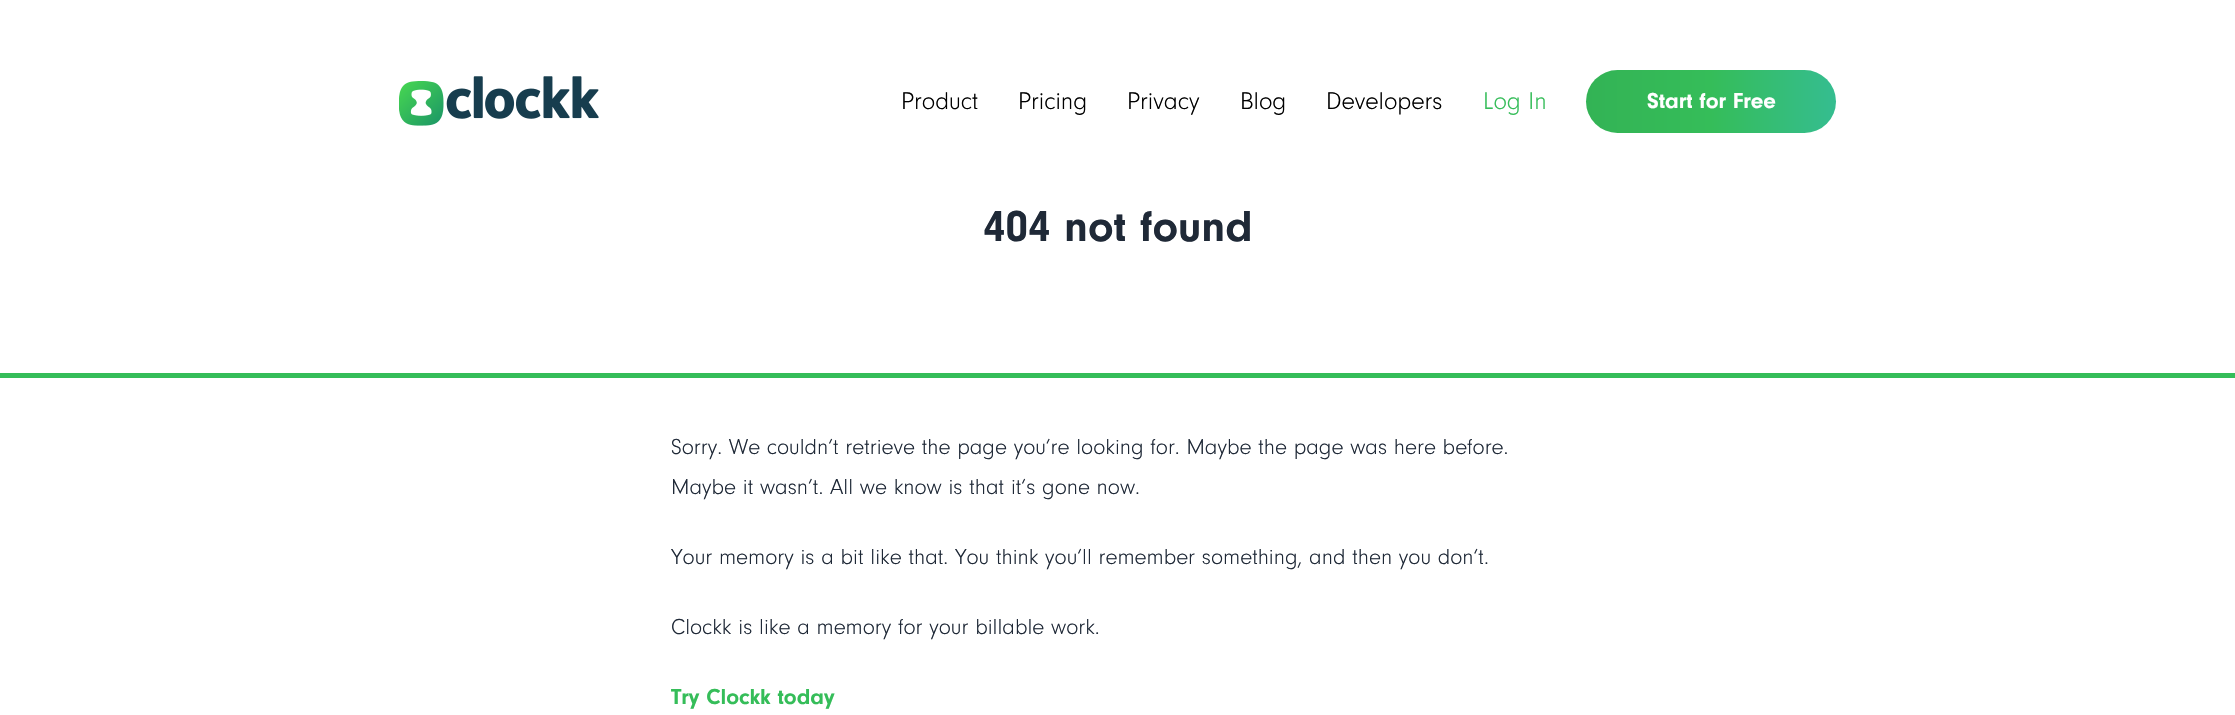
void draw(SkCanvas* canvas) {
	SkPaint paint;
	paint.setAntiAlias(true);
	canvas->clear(0xffffffff);
	canvas->drawImageRect(SkImages::DeferredFromEncodedData(SkData::MakeFromFileName("img1.png")), SkRect::MakeXYWH(399, 76, 200, 50), SkSamplingOptions());
	SkFont f1(fontMgr->matchFamilyStyle("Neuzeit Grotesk", SkFontStyle(300, SkFontStyle::kNormal_Width, SkFontStyle::kUpright_Slant)), 25);
	f1.setSubpixel(true);
	paint.setColor(0xff000000);
	canvas->drawString("Product", 901, 109, f1, paint);
	canvas->drawString("Pricing", 1018, 109, f1, paint);
	canvas->drawString("Privacy", 1127, 109, f1, paint);
	canvas->drawString("Blog", 1240, 109, f1, paint);
	canvas->drawString("Developers", 1326, 109, f1, paint);
	paint.setColor(0xff35bd59);
	canvas->drawString("Log In", 1483, 109, f1, paint);
	{
		const SkColor colors[] = {0xff33b355, 0xff35bd59, 0xff35bd90};
		const float stops[] = {0, 0.5, 1};
		const SkPoint ends[] = {{1586, 101}, {1836, 101}};
		paint.setShader(SkGradientShader::MakeLinear(ends, colors, stops, 3, SkTileMode::kClamp));
		paint.setAlpha(255);
	}
	canvas->drawRoundRect(SkRect::MakeXYWH(1586, 70, 250, 63), 31.5, 31.5, paint);
	SkFont f2(fontMgr->matchFamilyStyle("Neuzeit Grotesk", SkFontStyle::Bold()), 22.5);
	f2.setSubpixel(true);
	paint.setShader(nullptr);
	paint.setColor(0xffffffff);
	canvas->drawString("Start for Free", 1647, 108, f2, paint);
	paint.setColor(0xff35bd59);
	canvas->drawRect(SkRect::MakeXYWH(0, 373, 2235, 5), paint);
	SkFont f3(fontMgr->matchFamilyStyle("Neuzeit Grotesk", SkFontStyle::Bold()), 45);
	f3.setSubpixel(true);
	paint.setColor(0xff1f2937);
	canvas->drawString("404 not found", 983, 241, f3, paint);
	SkFont f4(fontMgr->matchFamilyStyle("Neuzeit Grotesk", SkFontStyle(300, SkFontStyle::kNormal_Width, SkFontStyle::kUpright_Slant)), 22.5);
	f4.setSubpixel(true);
	canvas->drawString("Sorry. We couldn’t retrieve the page you’re looking for. Maybe the page was here before.", 671, 454, f4, paint);
	canvas->drawString("Maybe it wasn’t. All we know is that it’s gone now.", 671, 494, f4, paint);
	canvas->drawString("Your memory is a bit like that. You think you’ll remember something, and then you don’t.", 671, 564, f4, paint);
	canvas->drawString("Clockk is like a memory for your billable work.", 671, 634, f4, paint);
	paint.setColor(0xff35bd59);
	canvas->drawString("Try Clockk today", 671, 704, f2, paint);
}
